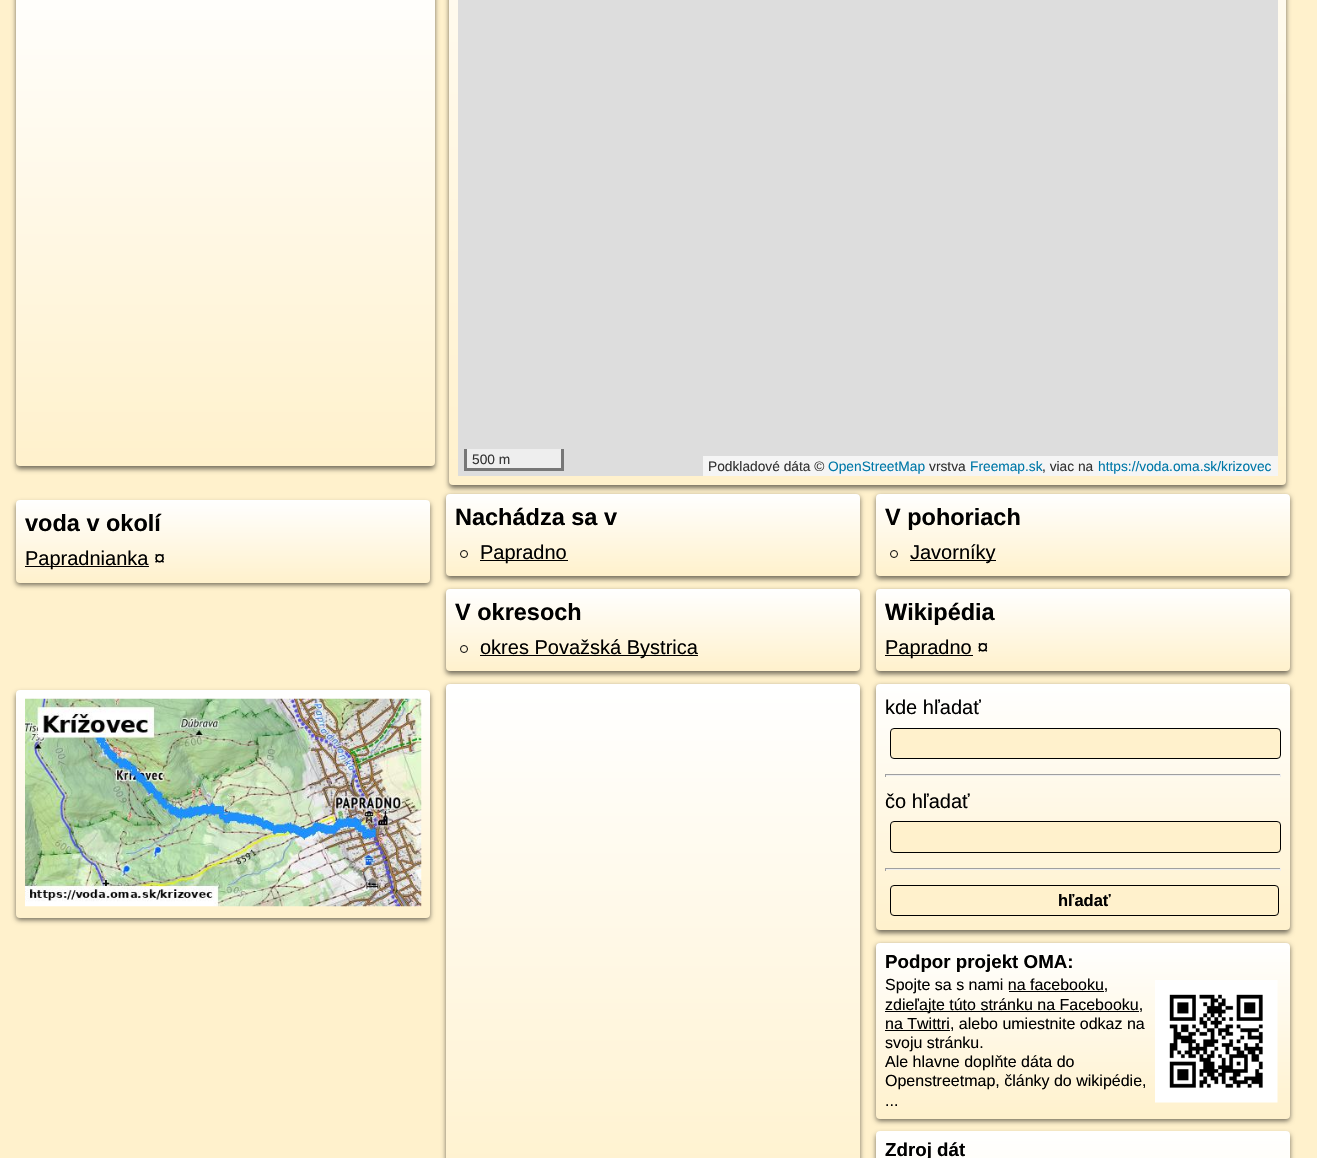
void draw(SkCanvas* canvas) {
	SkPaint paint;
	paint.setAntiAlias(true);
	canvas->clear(0xfffff1cc);
	paint.setColor(0x8c000000);
	paint.setMaskFilter(SkMaskFilter::MakeBlur(kNormal_SkBlurStyle, 2.5));
	canvas->drawRoundRect(SkRect::MakeXYWH(16, -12, 419, 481), 4, 4, paint);
	paint.setMaskFilter(nullptr);
	{
		const SkColor colors[] = {0xffffffff, 0xfffff1cc};
		const float stops[] = {0, 1};
		const SkPoint ends[] = {{226, -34}, {226, 466}};
		paint.setShader(SkGradientShader::MakeLinear(ends, colors, stops, 2, SkTileMode::kClamp));
		paint.setAlpha(255);
	}
	canvas->drawRoundRect(SkRect::MakeXYWH(16, -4, 419, 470), 4, 4, paint);
	paint.setShader(nullptr);
	paint.setColor(0x8c000000);
	paint.setMaskFilter(SkMaskFilter::MakeBlur(kNormal_SkBlurStyle, 2.5));
	canvas->drawRoundRect(SkRect::MakeXYWH(449, -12, 837, 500), 4, 4, paint);
	paint.setMaskFilter(nullptr);
	{
		const SkColor colors[] = {0xffffffff, 0xfffff1cc};
		const float stops[] = {0, 1};
		const SkPoint ends[] = {{868, -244}, {868, 485}};
		paint.setShader(SkGradientShader::MakeLinear(ends, colors, stops, 2, SkTileMode::kClamp));
		paint.setAlpha(255);
	}
	canvas->drawRoundRect(SkRect::MakeXYWH(449, -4, 837, 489), 4, 4, paint);
	paint.setShader(nullptr);
	paint.setColor(0xffdddddd);
	canvas->drawRect(SkRect::MakeXYWH(458, 0, 820, 476), paint);
	paint.setColor(0xffeeeeee);
	canvas->drawRect(SkRect::MakeXYWH(467, 449, 94, 19), paint);
	paint.setColor(0xff777777);
	canvas->drawRect(SkRect::MakeXYWH(561, 449, 3, 21), paint);
	canvas->drawRect(SkRect::MakeXYWH(464, 468, 100, 3), paint);
	canvas->drawRect(SkRect::MakeXYWH(464, 449, 3, 21), paint);
	SkFont f1(fontMgr->matchFamilyStyle("Liberation Sans", SkFontStyle::Normal()), 13.75);
	f1.setSubpixel(true);
	paint.setColor(0xff333333);
	canvas->drawString("500 m", 472, 464, f1, paint);
	paint.setColor(0xfff5f5f5);
	canvas->drawRect(SkRect::MakeXYWH(703, 456, 575, 20), paint);
	paint.setColor(0xff333333);
	canvas->drawString("Podkladové dáta ©", 708, 471, f1, paint);
	paint.setColor(0xff0078a8);
	canvas->drawString("OpenStreetMap", 828, 471, f1, paint);
	paint.setColor(0xff333333);
	canvas->drawString("vrstva", 929, 471, f1, paint);
	paint.setColor(0xff0078a8);
	canvas->drawString("Freemap.sk", 970, 471, f1, paint);
	paint.setColor(0xff333333);
	canvas->drawString(", viac na", 1042, 471, f1, paint);
	paint.setColor(0xff0078a8);
	canvas->drawString("https://voda.oma.sk/krizovec", 1098, 471, f1, paint);
	paint.setColor(0x8c000000);
	paint.setMaskFilter(SkMaskFilter::MakeBlur(kNormal_SkBlurStyle, 2.5));
	canvas->drawRoundRect(SkRect::MakeXYWH(16, 503, 414, 82), 4, 4, paint);
	paint.setMaskFilter(nullptr);
	{
		const SkColor colors[] = {0xffffffff, 0xfffff1cc};
		const float stops[] = {0, 1};
		const SkPoint ends[] = {{223, 500}, {223, 583}};
		paint.setShader(SkGradientShader::MakeLinear(ends, colors, stops, 2, SkTileMode::kClamp));
		paint.setAlpha(255);
	}
	canvas->drawRoundRect(SkRect::MakeXYWH(16, 500, 414, 83), 4, 4, paint);
	SkFont f2(fontMgr->matchFamilyStyle("Liberation Sans", SkFontStyle::Bold()), 23.5);
	f2.setSubpixel(true);
	paint.setShader(nullptr);
	paint.setColor(0xff000000);
	canvas->drawString("voda v okolí", 25, 531, f2, paint);
	canvas->drawRect(SkRect::MakeXYWH(25, 566, 124, 1), paint);
	SkFont f3(fontMgr->matchFamilyStyle("Liberation Sans", SkFontStyle::Normal()), 20);
	f3.setSubpixel(true);
	canvas->drawString("Papradnianka ¤", 25, 565, f3, paint);
	paint.setColor(0x8c000000);
	paint.setMaskFilter(SkMaskFilter::MakeBlur(kNormal_SkBlurStyle, 2.5));
	canvas->drawRoundRect(SkRect::MakeXYWH(446, 496, 414, 83), 4, 4, paint);
	paint.setMaskFilter(nullptr);
	{
		const SkColor colors[] = {0xffffffff, 0xfffff1cc};
		const float stops[] = {0, 1};
		const SkPoint ends[] = {{653, 494}, {653, 576}};
		paint.setShader(SkGradientShader::MakeLinear(ends, colors, stops, 2, SkTileMode::kClamp));
		paint.setAlpha(255);
	}
	canvas->drawRoundRect(SkRect::MakeXYWH(446, 494, 414, 82), 4, 4, paint);
	paint.setShader(nullptr);
	paint.setColor(0xff000000);
	canvas->drawString("Nachádza sa v", 455, 525, f2, paint);
	paint.setStroke(true);
	paint.setStrokeWidth(1);
	canvas->drawCircle(464, 554, 3.5, paint);
	paint.setStroke(false);
	canvas->drawRect(SkRect::MakeXYWH(480, 560, 88, 1), paint);
	canvas->drawString("Papradno", 480, 559, f3, paint);
	paint.setColor(0x8c000000);
	paint.setMaskFilter(SkMaskFilter::MakeBlur(kNormal_SkBlurStyle, 2.5));
	canvas->drawRoundRect(SkRect::MakeXYWH(876, 496, 414, 83), 4, 4, paint);
	paint.setMaskFilter(nullptr);
	{
		const SkColor colors[] = {0xffffffff, 0xfffff1cc};
		const float stops[] = {0, 1};
		const SkPoint ends[] = {{1083, 494}, {1083, 576}};
		paint.setShader(SkGradientShader::MakeLinear(ends, colors, stops, 2, SkTileMode::kClamp));
		paint.setAlpha(255);
	}
	canvas->drawRoundRect(SkRect::MakeXYWH(876, 494, 414, 82), 4, 4, paint);
	paint.setShader(nullptr);
	paint.setColor(0xff000000);
	canvas->drawString("V pohoriach", 885, 525, f2, paint);
	paint.setStroke(true);
	canvas->drawCircle(894, 554, 3.5, paint);
	paint.setStroke(false);
	canvas->drawRect(SkRect::MakeXYWH(910, 560, 86, 1), paint);
	canvas->drawString("Javorníky", 910, 559, f3, paint);
	paint.setColor(0x8c000000);
	paint.setMaskFilter(SkMaskFilter::MakeBlur(kNormal_SkBlurStyle, 2.5));
	canvas->drawRoundRect(SkRect::MakeXYWH(446, 591, 414, 83), 4, 4, paint);
	paint.setMaskFilter(nullptr);
	{
		const SkColor colors[] = {0xffffffff, 0xfffff1cc};
		const float stops[] = {0, 1};
		const SkPoint ends[] = {{653, 589}, {653, 671}};
		paint.setShader(SkGradientShader::MakeLinear(ends, colors, stops, 2, SkTileMode::kClamp));
		paint.setAlpha(255);
	}
	canvas->drawRoundRect(SkRect::MakeXYWH(446, 589, 414, 82), 4, 4, paint);
	paint.setShader(nullptr);
	paint.setColor(0xff000000);
	canvas->drawString("V okresoch", 455, 620, f2, paint);
	paint.setStroke(true);
	canvas->drawCircle(464, 649, 3.5, paint);
	paint.setStroke(false);
	canvas->drawRect(SkRect::MakeXYWH(480, 655, 218, 1), paint);
	canvas->drawString("okres Považská Bystrica", 480, 654, f3, paint);
	paint.setColor(0x8c000000);
	paint.setMaskFilter(SkMaskFilter::MakeBlur(kNormal_SkBlurStyle, 2.5));
	canvas->drawRoundRect(SkRect::MakeXYWH(876, 591, 414, 83), 4, 4, paint);
	paint.setMaskFilter(nullptr);
	{
		const SkColor colors[] = {0xffffffff, 0xfffff1cc};
		const float stops[] = {0, 1};
		const SkPoint ends[] = {{1083, 589}, {1083, 671}};
		paint.setShader(SkGradientShader::MakeLinear(ends, colors, stops, 2, SkTileMode::kClamp));
		paint.setAlpha(255);
	}
	canvas->drawRoundRect(SkRect::MakeXYWH(876, 589, 414, 82), 4, 4, paint);
	paint.setShader(nullptr);
	paint.setColor(0xff000000);
	canvas->drawString("Wikipédia", 885, 620, f2, paint);
	canvas->drawRect(SkRect::MakeXYWH(885, 655, 88, 1), paint);
	canvas->drawString("Papradno ¤", 885, 654, f3, paint);
	paint.setColor(0x8c000000);
	paint.setMaskFilter(SkMaskFilter::MakeBlur(kNormal_SkBlurStyle, 2.5));
	canvas->drawRoundRect(SkRect::MakeXYWH(16, 693, 414, 227), 4, 4, paint);
	paint.setMaskFilter(nullptr);
	{
		const SkColor colors[] = {0xffffffff, 0xfffff1cc};
		const float stops[] = {0, 1};
		const SkPoint ends[] = {{223, 690}, {223, 918}};
		paint.setShader(SkGradientShader::MakeLinear(ends, colors, stops, 2, SkTileMode::kClamp));
		paint.setAlpha(255);
	}
	canvas->drawRoundRect(SkRect::MakeXYWH(16, 690, 414, 228), 4, 4, paint);
	canvas->drawImageRect(SkImages::DeferredFromEncodedData(SkData::MakeFromFileName("img1.png")), SkRect::MakeXYWH(25, 698, 397, 209), SkSamplingOptions());
	paint.setShader(nullptr);
	paint.setColor(0x8c000000);
	paint.setMaskFilter(SkMaskFilter::MakeBlur(kNormal_SkBlurStyle, 2.5));
	canvas->drawRoundRect(SkRect::MakeXYWH(446, 686, 414, 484), 4, 4, paint);
	paint.setMaskFilter(nullptr);
	{
		const SkColor colors[] = {0xffffffff, 0xfffff1cc};
		const float stops[] = {0, 1};
		const SkPoint ends[] = {{653, 684}, {653, 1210}};
		paint.setShader(SkGradientShader::MakeLinear(ends, colors, stops, 2, SkTileMode::kClamp));
		paint.setAlpha(255);
	}
	canvas->drawRoundRect(SkRect::MakeXYWH(446, 684, 414, 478), 4, 4, paint);
	paint.setShader(nullptr);
	paint.setColor(0x8c000000);
	paint.setMaskFilter(SkMaskFilter::MakeBlur(kNormal_SkBlurStyle, 2.5));
	canvas->drawRoundRect(SkRect::MakeXYWH(876, 686, 414, 247), 4, 4, paint);
	paint.setMaskFilter(nullptr);
	{
		const SkColor colors[] = {0xffffffff, 0xfffff1cc};
		const float stops[] = {0, 1};
		const SkPoint ends[] = {{1083, 684}, {1083, 930}};
		paint.setShader(SkGradientShader::MakeLinear(ends, colors, stops, 2, SkTileMode::kClamp));
		paint.setAlpha(255);
	}
	canvas->drawRoundRect(SkRect::MakeXYWH(876, 684, 414, 246), 4, 4, paint);
	paint.setShader(nullptr);
	paint.setColor(0xff000000);
	canvas->drawString("kde hľadať", 885, 714, f3, paint);
	paint.setColor(0xfffff1cc);
	canvas->drawRoundRect(SkRect::MakeXYWH(890.5, 728.5, 390, 30), 3.5, 3.5, paint);
	paint.setStroke(true);
	paint.setColor(0xff000000);
	canvas->drawRoundRect(SkRect::MakeXYWH(890.5, 728.5, 390, 30), 3.5, 3.5, paint);
	paint.setStroke(false);
	paint.setColor(0xff9f9f9f);
	canvas->drawRect(SkRect::MakeXYWH(885, 774, 396, 1), paint);
	paint.setColor(0xffeeeeee);
	canvas->drawRect(SkRect::MakeXYWH(1280, 774, 1, 3), paint);
	canvas->drawRect(SkRect::MakeXYWH(885, 775, 396, 1), paint);
	paint.setColor(0xff9f9f9f);
	canvas->drawRect(SkRect::MakeXYWH(885, 774, 1, 3), paint);
	paint.setColor(0xff000000);
	canvas->drawString("čo hľadať", 885, 808, f3, paint);
	paint.setColor(0xfffff1cc);
	canvas->drawRoundRect(SkRect::MakeXYWH(890.5, 821.5, 390, 31), 3.5, 3.5, paint);
	paint.setStroke(true);
	paint.setColor(0xff000000);
	canvas->drawRoundRect(SkRect::MakeXYWH(890.5, 821.5, 390, 31), 3.5, 3.5, paint);
	paint.setStroke(false);
	paint.setColor(0xff9f9f9f);
	canvas->drawRect(SkRect::MakeXYWH(885, 868, 396, 1), paint);
	paint.setColor(0xffeeeeee);
	canvas->drawRect(SkRect::MakeXYWH(1280, 868, 1, 3), paint);
	canvas->drawRect(SkRect::MakeXYWH(885, 869, 396, 1), paint);
	paint.setColor(0xff9f9f9f);
	canvas->drawRect(SkRect::MakeXYWH(885, 868, 1, 3), paint);
	paint.setColor(0xfffff1cc);
	canvas->drawRoundRect(SkRect::MakeXYWH(890.5, 885.5, 388, 30), 3.5, 3.5, paint);
	paint.setStroke(true);
	paint.setColor(0xff000000);
	canvas->drawRoundRect(SkRect::MakeXYWH(890.5, 885.5, 388, 30), 3.5, 3.5, paint);
	SkFont f4(fontMgr->matchFamilyStyle("Liberation Sans", SkFontStyle::Bold()), 16.5);
	f4.setSubpixel(true);
	paint.setStroke(false);
	canvas->drawString("hľadať", 1058, 906, f4, paint);
	paint.setColor(0x8c000000);
	paint.setMaskFilter(SkMaskFilter::MakeBlur(kNormal_SkBlurStyle, 2.5));
	canvas->drawRoundRect(SkRect::MakeXYWH(876, 945, 414, 176), 4, 4, paint);
	paint.setMaskFilter(nullptr);
	{
		const SkColor colors[] = {0xffffffff, 0xfffff1cc};
		const float stops[] = {0, 1};
		const SkPoint ends[] = {{1083, 943}, {1083, 1119}};
		paint.setShader(SkGradientShader::MakeLinear(ends, colors, stops, 2, SkTileMode::kClamp));
		paint.setAlpha(255);
	}
	canvas->drawRoundRect(SkRect::MakeXYWH(876, 943, 414, 176), 4, 4, paint);
	SkFont f5(fontMgr->matchFamilyStyle("Liberation Sans", SkFontStyle::Bold()), 18.75);
	f5.setSubpixel(true);
	paint.setShader(nullptr);
	paint.setColor(0xff000000);
	canvas->drawString("Podpor projekt OMA:", 885, 968, f5, paint);
	SkFont f6(fontMgr->matchFamilyStyle("Liberation Sans", SkFontStyle::Normal()), 16);
	f6.setSubpixel(true);
	canvas->drawString("Spojte sa s nami na facebooku,", 885, 990, f6, paint);
	canvas->drawRect(SkRect::MakeXYWH(1009, 991, 95, 1), paint);
	canvas->drawRect(SkRect::MakeXYWH(885, 1011, 254, 1), paint);
	canvas->drawString("zdieľajte túto stránku na Facebooku,", 885, 1010, f6, paint);
	canvas->drawRect(SkRect::MakeXYWH(885, 1030, 65, 1), paint);
	canvas->drawString("na Twittri, alebo umiestnite odkaz na", 885, 1029, f6, paint);
	canvas->drawString("svoju stránku.", 885, 1048, f6, paint);
	canvas->drawImageRect(SkImages::DeferredFromEncodedData(SkData::MakeFromFileName("img2.png")), SkRect::MakeXYWH(1155, 980, 123, 123), SkSamplingOptions());
	canvas->drawString("Ale hlavne doplňte dáta do", 885, 1067, f6, paint);
	canvas->drawString("Openstreetmap, články do wikipédie,", 885, 1086, f6, paint);
	canvas->drawString("...", 885, 1106, f6, paint);
	paint.setColor(0x8c000000);
	paint.setMaskFilter(SkMaskFilter::MakeBlur(kNormal_SkBlurStyle, 2.5));
	canvas->drawRoundRect(SkRect::MakeXYWH(876, 1134, 414, 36), 4, 4, paint);
	paint.setMaskFilter(nullptr);
	{
		const SkColor colors[] = {0xffffffff, 0xfffff1cc};
		const float stops[] = {0, 1};
		const SkPoint ends[] = {{1083, 1131}, {1083, 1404}};
		paint.setShader(SkGradientShader::MakeLinear(ends, colors, stops, 2, SkTileMode::kClamp));
		paint.setAlpha(255);
	}
	canvas->drawRoundRect(SkRect::MakeXYWH(876, 1131, 414, 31), 4, 4, paint);
	paint.setShader(nullptr);
	paint.setColor(0xff000000);
	canvas->drawString("Zdroj dát", 885, 1156, f5, paint);
}
